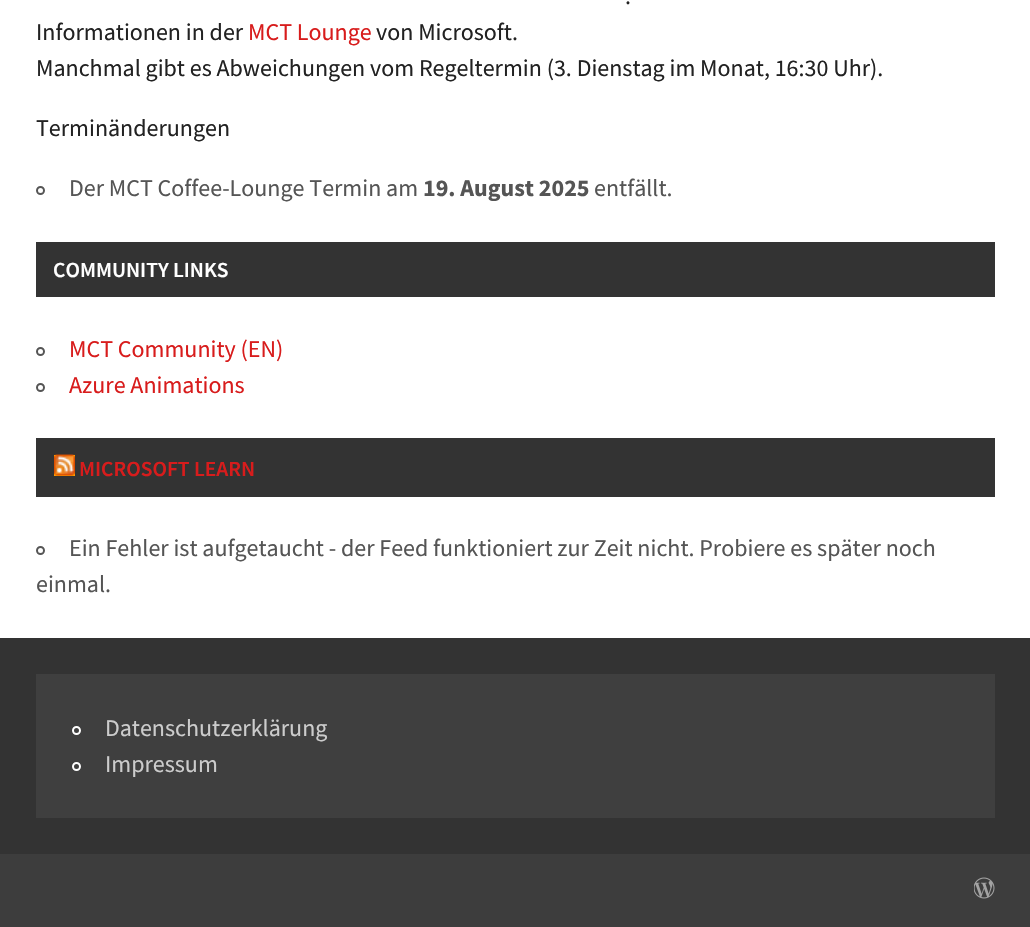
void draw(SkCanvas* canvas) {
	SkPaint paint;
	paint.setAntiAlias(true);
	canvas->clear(0xffffffff);
	SkFont f1(fontMgr->matchFamilyStyle("Source Sans Pro", SkFontStyle::Normal()), 24);
	f1.setSubpixel(true);
	paint.setColor(0xff222222);
	canvas->drawString(".", 625, 4, f1, paint);
	canvas->drawString("Informationen in der", 36, 40, f1, paint);
	paint.setColor(0xffd81c1c);
	canvas->drawString("MCT Lounge", 248, 40, f1, paint);
	paint.setColor(0xff222222);
	canvas->drawString("von Microsoft.", 376, 40, f1, paint);
	canvas->drawString("Manchmal gibt es Abweichungen vom Regeltermin (3. Dienstag im Monat, 16:30 Uhr).", 36, 76, f1, paint);
	canvas->drawString("Terminänderungen", 36, 136, f1, paint);
	paint.setStroke(true);
	paint.setStrokeWidth(2);
	paint.setColor(0xff555555);
	canvas->drawCircle(40.5, 190.5, 3.5, paint);
	paint.setStroke(false);
	canvas->drawString("Der MCT Coffee-Lounge Termin am", 69, 196, f1, paint);
	SkFont f2(fontMgr->matchFamilyStyle("Source Sans Pro", SkFontStyle::Bold()), 24);
	f2.setSubpixel(true);
	canvas->drawString("19. August 2025", 423, 196, f2, paint);
	canvas->drawString("entfällt.", 594, 196, f1, paint);
	paint.setColor(0xff333333);
	canvas->drawRect(SkRect::MakeXYWH(36, 242, 959, 55), paint);
	SkFont f3(fontMgr->matchFamilyStyle("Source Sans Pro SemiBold", SkFontStyle(600, SkFontStyle::kNormal_Width, SkFontStyle::kUpright_Slant)), 21.5);
	f3.setSubpixel(true);
	paint.setColor(0xffffffff);
	canvas->drawString("COMMUNITY LINKS", 53, 277, f3, paint);
	paint.setStroke(true);
	paint.setColor(0xff555555);
	canvas->drawCircle(40.5, 351.5, 3.5, paint);
	paint.setStroke(false);
	paint.setColor(0xffd81c1c);
	canvas->drawString("MCT Community (EN)", 69, 357, f1, paint);
	paint.setStroke(true);
	paint.setColor(0xff555555);
	canvas->drawCircle(40.5, 387.5, 3.5, paint);
	paint.setStroke(false);
	paint.setColor(0xffd81c1c);
	canvas->drawString("Azure Animations", 69, 393, f1, paint);
	paint.setColor(0xff333333);
	canvas->drawRect(SkRect::MakeXYWH(36, 438, 959, 59), paint);
	paint.setColor(0xffffa500);
	canvas->drawRect(SkRect::MakeXYWH(54, 455, 21, 21), paint);
	canvas->drawImageRect(SkImages::DeferredFromEncodedData(SkData::MakeFromFileName("img1.png")), SkRect::MakeXYWH(54, 454, 21, 22), SkSamplingOptions());
	paint.setColor(0xffd81c1c);
	canvas->drawString("MICROSOFT LEARN", 79, 476, f3, paint);
	paint.setStroke(true);
	paint.setColor(0xff555555);
	canvas->drawCircle(40.5, 550.5, 3.5, paint);
	paint.setStroke(false);
	canvas->drawString("Ein Fehler ist aufgetaucht - der Feed funktioniert zur Zeit nicht. Probiere es später noch", 69, 556, f1, paint);
	canvas->drawString("einmal.", 36, 592, f1, paint);
	paint.setColor(0xff333333);
	canvas->drawRect(SkRect::MakeXYWH(0, 638, 1030, 216), paint);
	paint.setColor(0xff3f3f3f);
	canvas->drawRect(SkRect::MakeXYWH(36, 674, 959, 144), paint);
	paint.setStroke(true);
	paint.setColor(0xffffffff);
	canvas->drawCircle(76.5, 730.5, 3.5, paint);
	paint.setStroke(false);
	paint.setColor(0xffcccccc);
	canvas->drawString("Datenschutzerklärung", 105, 736, f1, paint);
	paint.setStroke(true);
	paint.setColor(0xffffffff);
	canvas->drawCircle(76.5, 766.5, 3.5, paint);
	paint.setStroke(false);
	paint.setColor(0xffcccccc);
	canvas->drawString("Impressum", 105, 772, f1, paint);
	paint.setColor(0xff3d3d3d);
	canvas->drawRect(SkRect::MakeXYWH(0, 854, 1030, 73), paint);
	canvas->drawImageRect(SkImages::DeferredFromEncodedData(SkData::MakeFromFileName("img2.png")), SkRect::MakeXYWH(974, 877, 21, 22), SkSamplingOptions());
}
